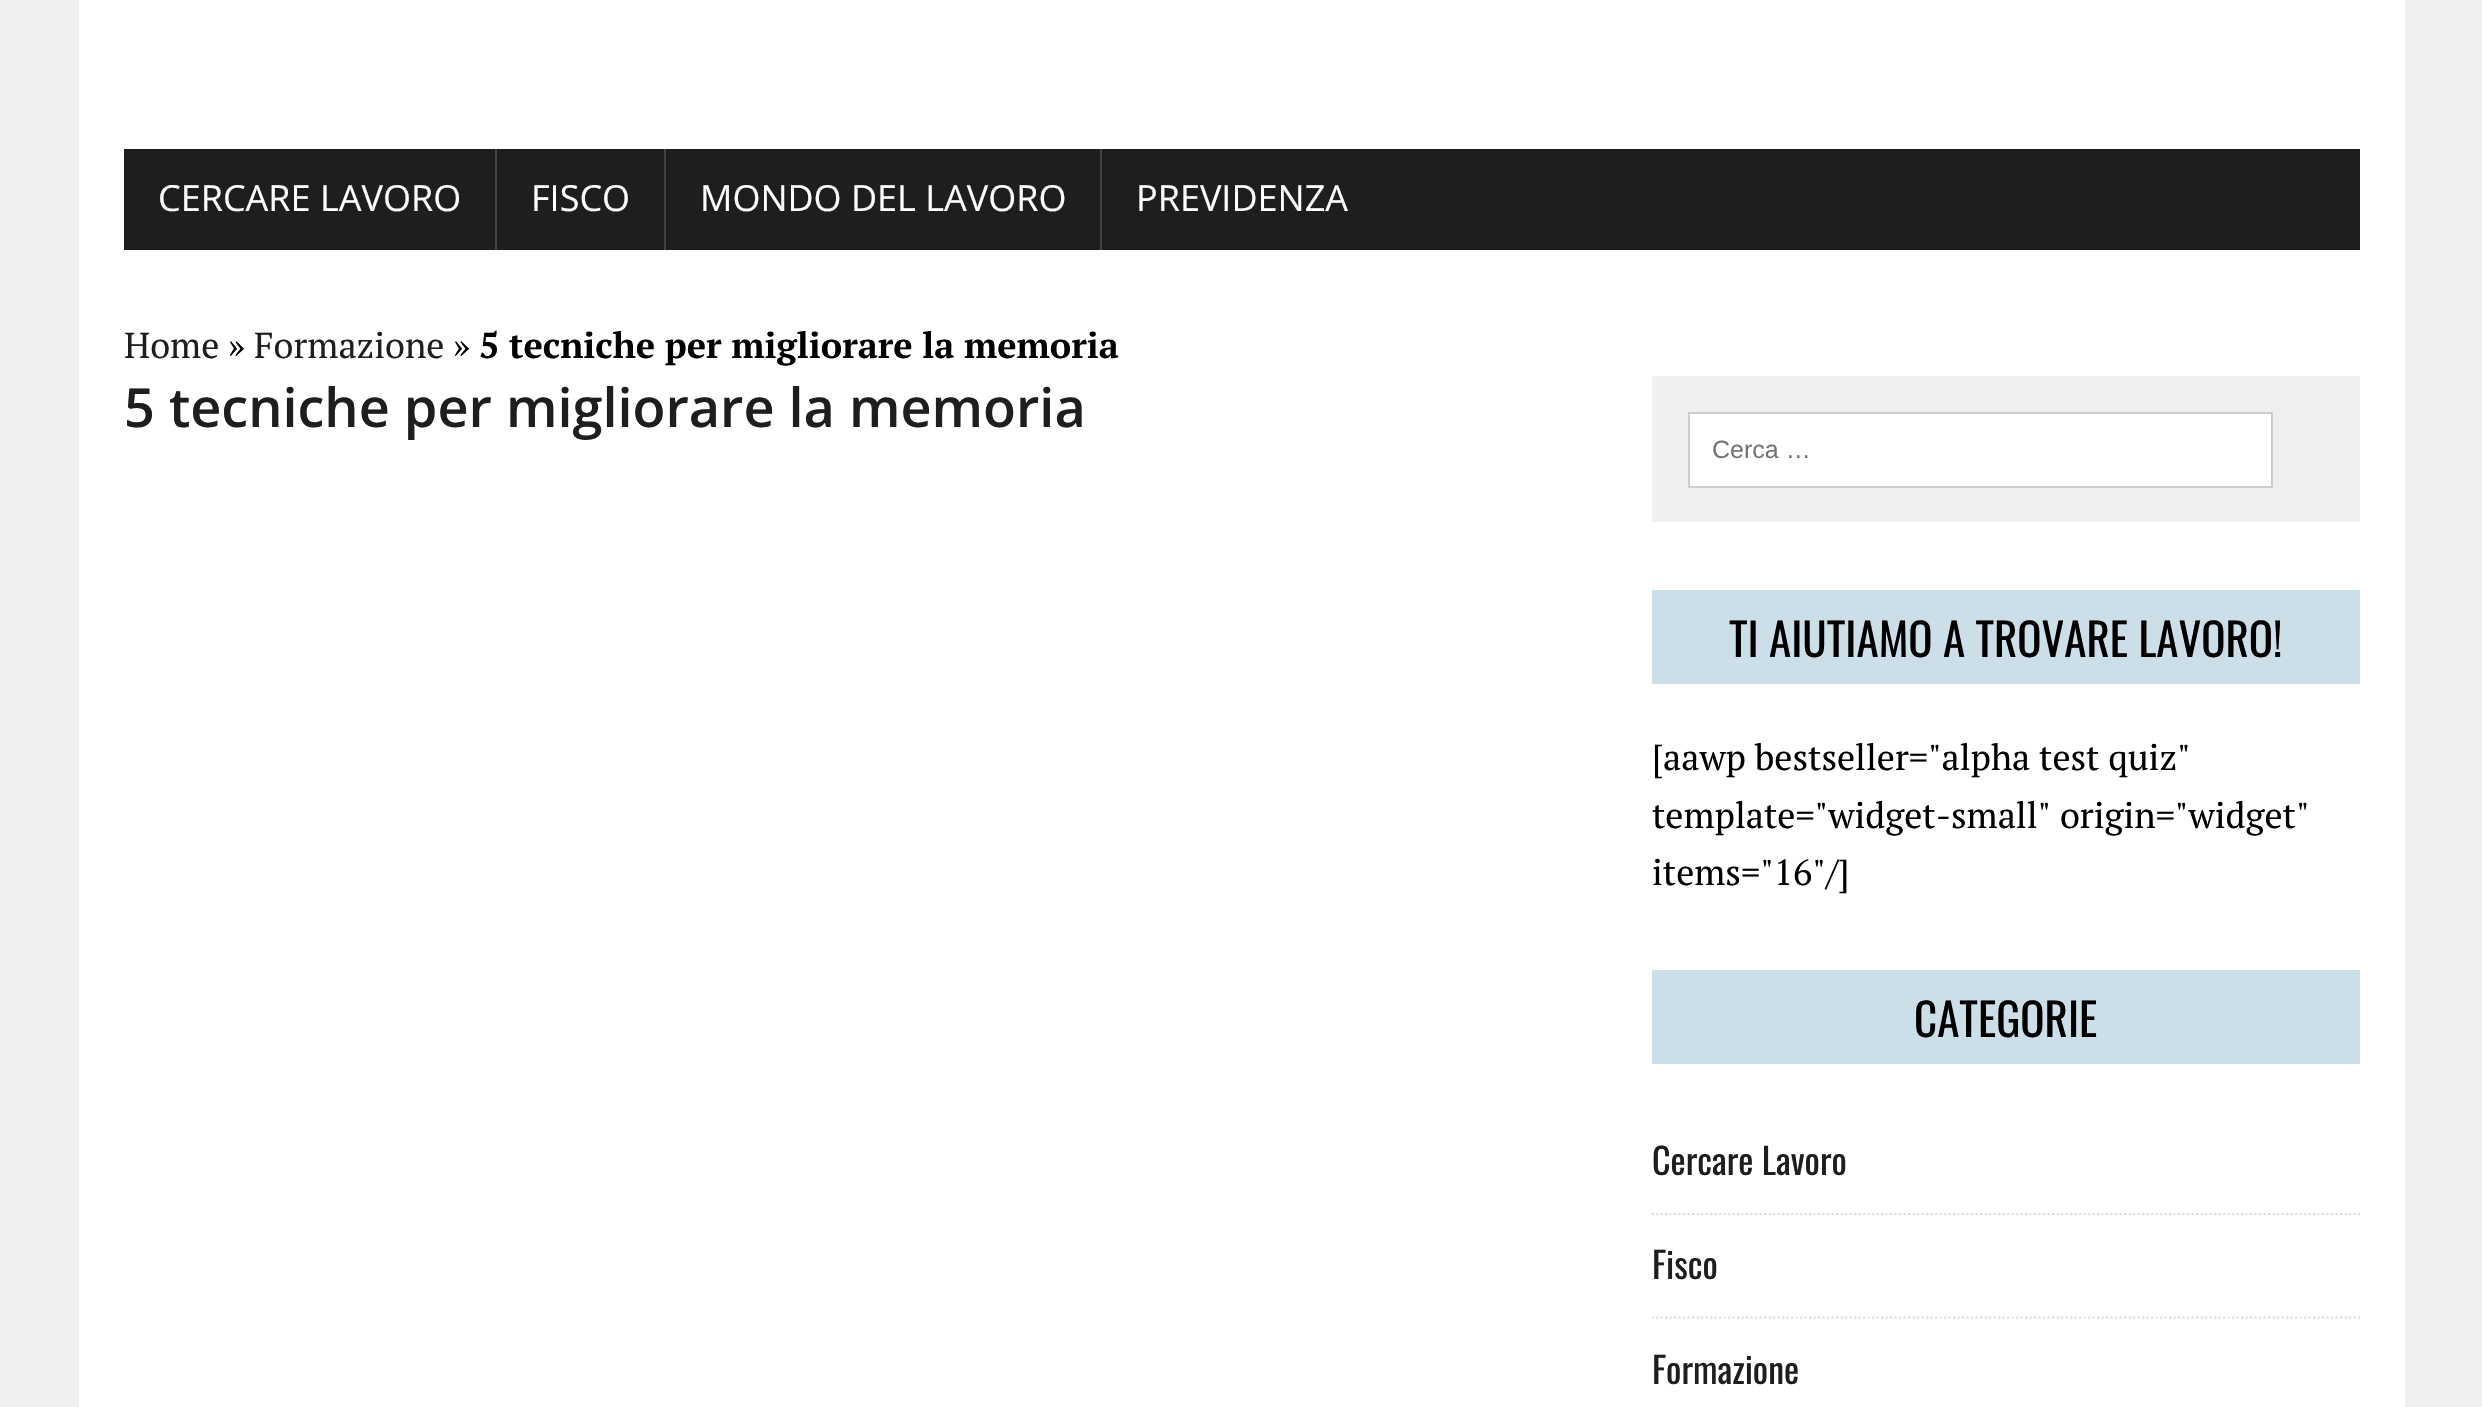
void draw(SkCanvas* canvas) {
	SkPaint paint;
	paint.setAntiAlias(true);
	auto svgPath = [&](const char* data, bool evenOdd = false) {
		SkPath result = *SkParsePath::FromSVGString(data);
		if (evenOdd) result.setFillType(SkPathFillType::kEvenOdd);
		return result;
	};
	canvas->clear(0xffefefef);
	paint.setColor(0xffffffff);
	canvas->drawRect(SkRect::MakeXYWH(79, 0, 2326, 1407), paint);
	paint.setColor(0xff1f1e1e);
	canvas->drawRect(SkRect::MakeXYWH(124, 149, 2236, 101), paint);
	SkFont f1(fontMgr->matchFamilyStyle("Open Sans", SkFontStyle::Normal()), 36);
	f1.setSubpixel(true);
	paint.setColor(0xffffffff);
	canvas->drawString("CERCARE LAVORO", 158, 211, f1, paint);
	paint.setColor(0xff424242);
	canvas->drawRect(SkRect::MakeXYWH(495, 149, 2, 101), paint);
	paint.setColor(0xffffffff);
	canvas->drawString("FISCO", 531, 211, f1, paint);
	paint.setColor(0xff424242);
	canvas->drawRect(SkRect::MakeXYWH(664, 149, 2, 101), paint);
	paint.setColor(0xffffffff);
	canvas->drawString("MONDO DEL LAVORO", 700, 211, f1, paint);
	paint.setColor(0xff424242);
	canvas->drawRect(SkRect::MakeXYWH(1100, 149, 2, 101), paint);
	paint.setColor(0xffffffff);
	canvas->drawString("PREVIDENZA", 1136, 211, f1, paint);
	SkFont f2(fontMgr->matchFamilyStyle("PT Serif", SkFontStyle::Normal()), 36);
	f2.setSubpixel(true);
	paint.setColor(0xff1f1e1e);
	canvas->drawString("Home", 124, 358, f2, paint);
	paint.setColor(0xff000000);
	canvas->drawString("»", 228, 358, f2, paint);
	paint.setColor(0xff1f1e1e);
	canvas->drawString("Formazione", 254, 358, f2, paint);
	paint.setColor(0xff000000);
	canvas->drawString("»", 453, 358, f2, paint);
	SkFont f3(fontMgr->matchFamilyStyle("PT Serif", SkFontStyle::Bold()), 36);
	f3.setSubpixel(true);
	canvas->drawString("5 tecniche per migliorare la memoria", 479, 358, f3, paint);
	SkFont f4(fontMgr->matchFamilyStyle("Open Sans", SkFontStyle(600, SkFontStyle::kNormal_Width, SkFontStyle::kUpright_Slant)), 54);
	f4.setSubpixel(true);
	paint.setColor(0xff1f1e1e);
	canvas->drawString("5 tecniche per migliorare la memoria", 124, 427, f4, paint);
	paint.setColor(0xffefefef);
	canvas->drawRect(SkRect::MakeXYWH(1652, 376, 708, 146), paint);
	paint.setColor(0xffffffff);
	canvas->drawRect(SkRect::MakeXYWH(1689, 413, 583, 74), paint);
	paint.setStroke(true);
	paint.setStrokeWidth(2);
	paint.setColor(0xffcdcdcd);
	canvas->drawRect(SkRect::MakeXYWH(1689, 413, 583, 74), paint);
	SkFont f5(fontMgr->matchFamilyStyle("Liberation Sans", SkFontStyle::Normal()), 25);
	f5.setSubpixel(true);
	paint.setStroke(false);
	paint.setColor(0xff757575);
	canvas->drawString("Cerca …", 1712, 458, f5, paint);
	paint.setColor(0xffccdee8);
	canvas->drawRect(SkRect::MakeXYWH(1652, 590, 708, 94), paint);
	SkFont f6(fontMgr->matchFamilyStyle("Oswald", SkFontStyle::Normal()), 45);
	f6.setSubpixel(true);
	paint.setColor(0xff000000);
	canvas->drawString("TI AIUTIAMO A TROVARE LAVORO!", 1729, 657, f6, paint);
	canvas->drawString("[aawp bestseller=\"alpha test quiz\"", 1652, 770, f2, paint);
	canvas->drawString("template=\"widget-small\" origin=\"widget\"", 1652, 828, f2, paint);
	canvas->drawString("items=\"16\"/]", 1652, 885, f2, paint);
	paint.setColor(0xffccdee8);
	canvas->drawRect(SkRect::MakeXYWH(1652, 970, 708, 94), paint);
	paint.setColor(0xff000000);
	canvas->drawString("CATEGORIE", 1914, 1037, f6, paint);
	paint.setStroke(true);
	paint.setStrokeWidth(2.2);
	paint.setColor(0xffdcdcdc);
	paint.setPathEffect(SkDashPathEffect::Make({{2.25f, 2.25f}}, 0));
	canvas->drawPath(svgPath("M1651.5 1214H2360"), paint);
	paint.setPathEffect(nullptr);
	SkFont f7(fontMgr->matchFamilyStyle("Oswald", SkFontStyle::Normal()), 36);
	f7.setSubpixel(true);
	paint.setStroke(false);
	paint.setColor(0xff1f1e1e);
	canvas->drawString("Cercare Lavoro", 1652, 1175, f7, paint);
	canvas->save();
	canvas->clipRect(SkRect::MakeXYWH(1652, 970, 708, 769));
	paint.setStroke(true);
	paint.setColor(0xffdcdcdc);
	paint.setPathEffect(SkDashPathEffect::Make({{2.25f, 2.25f}}, 0));
	canvas->drawPath(svgPath("M1651.5 1317.5H2360"), paint);
	paint.setPathEffect(nullptr);
	canvas->restore();
	paint.setStroke(false);
	paint.setColor(0xff1f1e1e);
	canvas->drawString("Fisco", 1652, 1279, f7, paint);
	canvas->drawString("Formazione", 1652, 1384, f7, paint);
}
